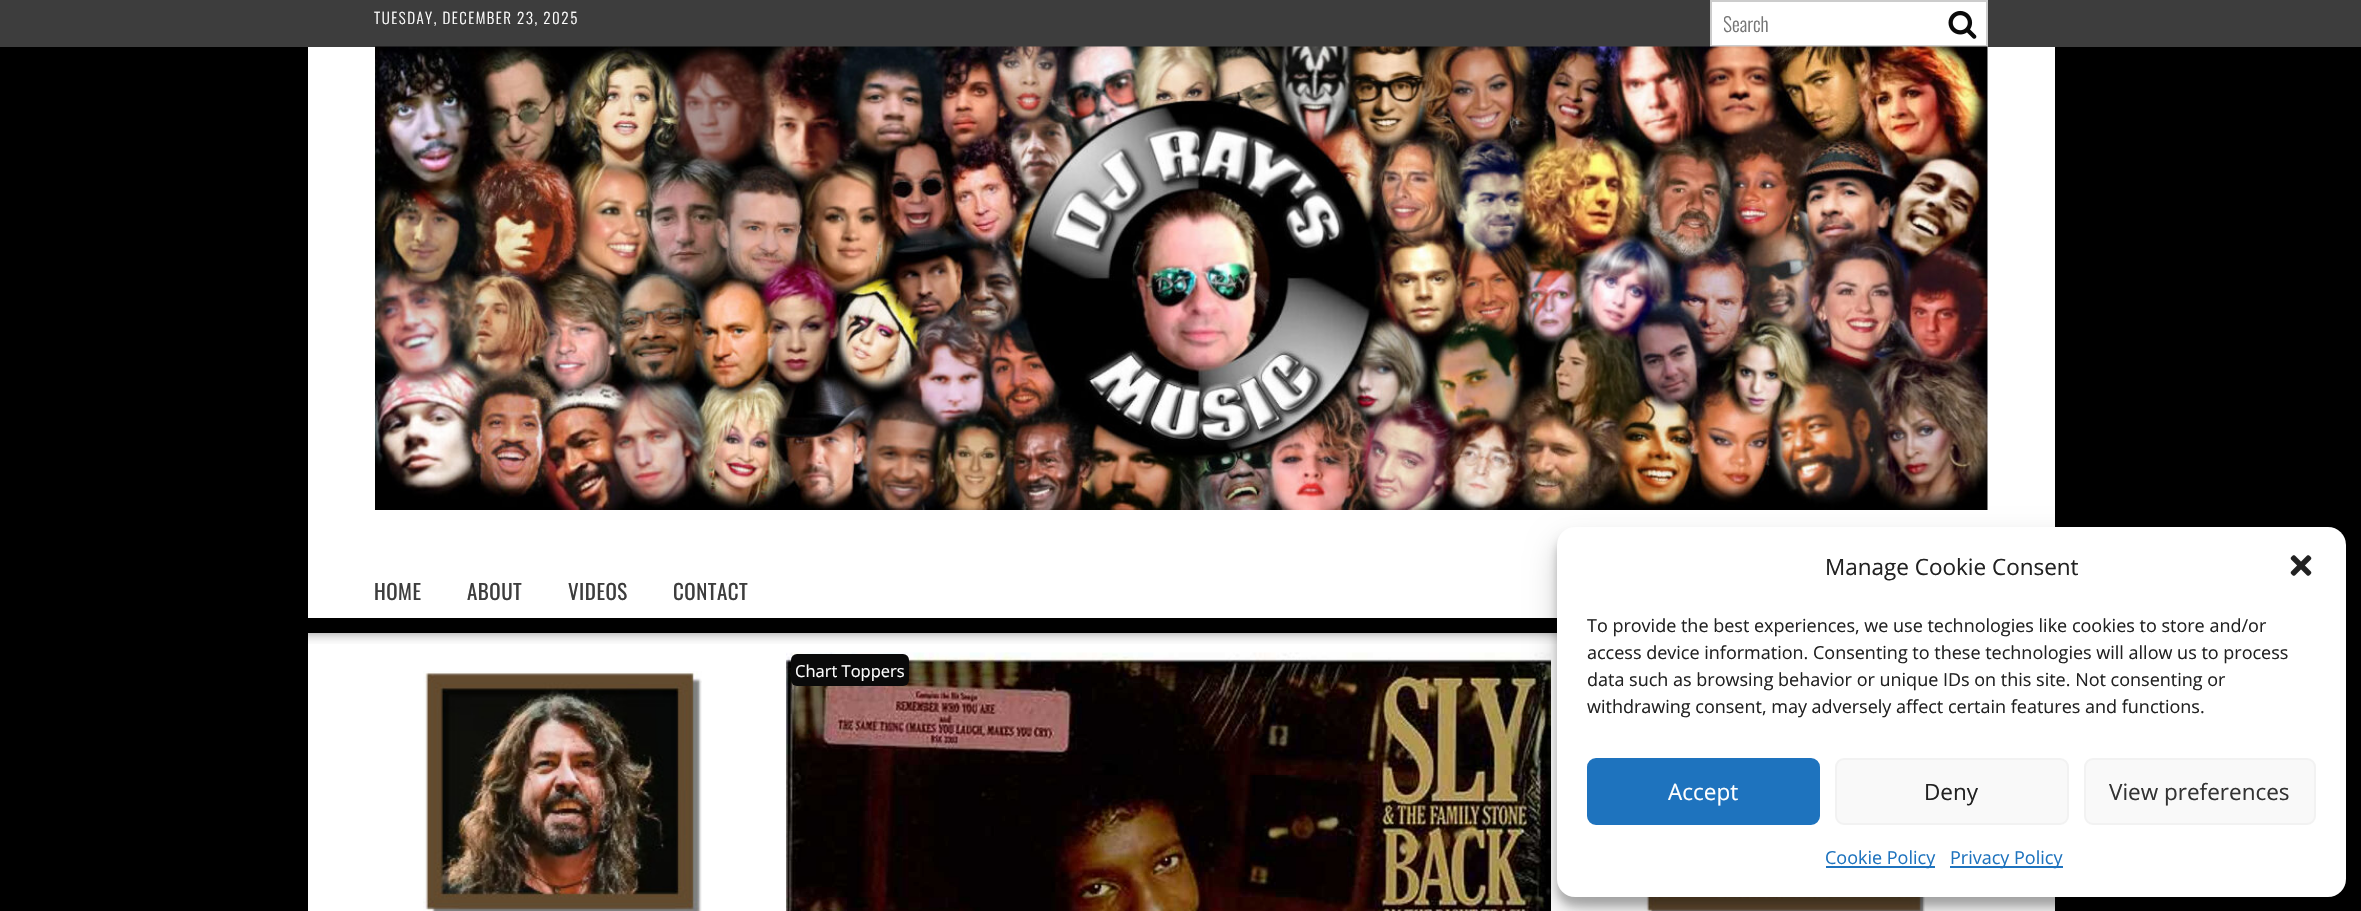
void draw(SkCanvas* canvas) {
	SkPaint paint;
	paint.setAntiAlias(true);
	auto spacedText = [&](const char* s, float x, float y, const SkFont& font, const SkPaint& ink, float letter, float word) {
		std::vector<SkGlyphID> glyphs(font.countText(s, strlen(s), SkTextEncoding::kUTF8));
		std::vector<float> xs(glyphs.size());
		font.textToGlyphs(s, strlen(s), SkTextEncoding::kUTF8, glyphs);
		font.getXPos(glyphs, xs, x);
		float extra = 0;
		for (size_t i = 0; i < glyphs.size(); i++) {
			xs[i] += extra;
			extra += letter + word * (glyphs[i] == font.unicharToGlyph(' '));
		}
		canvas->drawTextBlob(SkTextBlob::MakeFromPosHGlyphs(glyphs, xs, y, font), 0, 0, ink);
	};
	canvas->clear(0xff000000);
	paint.setColor(0xff3d3d3d);
	canvas->drawRect(SkRect::MakeXYWH(0, 0, 2361, 47), paint);
	SkFont f1(fontMgr->matchFamilyStyle("Oswald", SkFontStyle(300, SkFontStyle::kNormal_Width, SkFontStyle::kUpright_Slant)), 15);
	f1.setSubpixel(true);
	paint.setColor(0xffffffff);
	spacedText("TUESDAY, DECEMBER 23, 2025", 374, 24, f1, paint, 1.5, 0);
	canvas->drawRect(SkRect::MakeXYWH(1711, 1, 276, 45), paint);
	paint.setStroke(true);
	paint.setStrokeWidth(2);
	paint.setColor(0xffcccccc);
	canvas->drawRect(SkRect::MakeXYWH(1711, 1, 276, 45), paint);
	canvas->save();
	canvas->clipRect(SkRect::MakeXYWH(1724, 8, 228, 30));
	SkFont f2(fontMgr->matchFamilyStyle("Oswald", SkFontStyle(300, SkFontStyle::kNormal_Width, SkFontStyle::kUpright_Slant)), 19.5);
	f2.setSubpixel(true);
	paint.setStroke(false);
	paint.setColor(0xff757575);
	canvas->drawString("Search", 1723, 32, f2, paint);
	canvas->restore();
	canvas->drawImageRect(SkImages::DeferredFromEncodedData(SkData::MakeFromFileName("img1.png")), SkRect::MakeXYWH(1948, 10, 29, 29), SkSamplingOptions());
	paint.setColor(0xffffffff);
	canvas->drawRect(SkRect::MakeXYWH(308, 47, 1747, 508), paint);
	canvas->drawImageRect(SkImages::DeferredFromEncodedData(SkData::MakeFromFileName("img2.png")), SkRect::MakeXYWH(375, 46, 1613, 464), SkSamplingOptions());
	canvas->drawRect(SkRect::MakeXYWH(308, 633, 1747, 278), paint);
	canvas->save();
	canvas->clipRect(SkRect::MakeXYWH(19, 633, 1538, 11));
	paint.setColor(0xbf000000);
	paint.setMaskFilter(SkMaskFilter::MakeBlur(kNormal_SkBlurStyle, 8));
	canvas->drawRect(SkRect::MakeXYWH(30, 611, 2301, 18), paint);
	paint.setMaskFilter(nullptr);
	canvas->restore();
	paint.setColor(0xffffffff);
	canvas->drawRect(SkRect::MakeXYWH(308, 555, 1249, 63), paint);
	SkFont f3(fontMgr->matchFamilyStyle("Oswald", SkFontStyle::Normal()), 21);
	f3.setSubpixel(true);
	paint.setColor(0xff3d3d3d);
	spacedText("HOME", 374, 600, f3, paint, 0.5, 0);
	spacedText("ABOUT", 467, 600, f3, paint, 0.5, 0);
	spacedText("VIDEOS", 568, 600, f3, paint, 0.5, 0);
	spacedText("CONTACT", 673, 600, f3, paint, 0.5, 0);
	canvas->drawImageRect(SkImages::DeferredFromEncodedData(SkData::MakeFromFileName("img3.png")), SkRect::MakeXYWH(423, 671, 279, 240), SkSamplingOptions());
	canvas->drawImageRect(SkImages::DeferredFromEncodedData(SkData::MakeFromFileName("img4.png")), SkRect::MakeXYWH(786, 652, 765, 259), SkSamplingOptions());
	paint.setColor(0xff0a0a0a);
	canvas->drawRoundRect(SkRect::MakeXYWH(791, 654, 118, 32), 6, 6, paint);
	SkFont f4(fontMgr->matchFamilyStyle("Open Sans", SkFontStyle::Normal()), 16.5);
	f4.setSubpixel(true);
	paint.setColor(0xffffffff);
	canvas->drawString("Chart Toppers", 795, 677, f4, paint);
	canvas->drawImageRect(SkImages::DeferredFromEncodedData(SkData::MakeFromFileName("img5.png")), SkRect::MakeXYWH(1644, 897, 281, 14), SkSamplingOptions());
	paint.setColor(0x3b000000);
	paint.setMaskFilter(SkMaskFilter::MakeBlur(kNormal_SkBlurStyle, 4.5));
	canvas->drawRoundRect(SkRect::MakeXYWH(1557, 536, 789, 370), 18, 18, paint);
	paint.setMaskFilter(nullptr);
	paint.setColor(0x30000000);
	paint.setMaskFilter(SkMaskFilter::MakeBlur(kNormal_SkBlurStyle, 15));
	canvas->drawRoundRect(SkRect::MakeXYWH(1557, 542, 789, 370), 18, 18, paint);
	paint.setMaskFilter(nullptr);
	paint.setColor(0xffffffff);
	canvas->drawRoundRect(SkRect::MakeXYWH(1557, 527, 789, 370), 18, 18, paint);
	SkFont f5(fontMgr->matchFamilyStyle("Open Sans", SkFontStyle::Normal()), 22.5);
	f5.setSubpixel(true);
	paint.setColor(0xff222222);
	canvas->drawString("Manage Cookie Consent", 1825, 575, f5, paint);
	canvas->drawImageRect(SkImages::DeferredFromEncodedData(SkData::MakeFromFileName("img6.png")), SkRect::MakeXYWH(2290, 555, 22, 21), SkSamplingOptions());
	SkFont f6(fontMgr->matchFamilyStyle("Open Sans", SkFontStyle::Normal()), 18);
	f6.setSubpixel(true);
	canvas->drawString("To provide the best experiences, we use technologies like cookies to store and/or", 1587, 632, f6, paint);
	canvas->drawString("access device information. Consenting to these technologies will allow us to process", 1587, 659, f6, paint);
	canvas->drawString("data such as browsing behavior or unique IDs on this site. Not consenting or", 1587, 686, f6, paint);
	canvas->drawString("withdrawing consent, may adversely affect certain features and functions.", 1587, 713, f6, paint);
	paint.setColor(0xff1e73be);
	canvas->drawRoundRect(SkRect::MakeXYWH(1588, 759, 231, 65), 8, 8, paint);
	paint.setStroke(true);
	canvas->drawRoundRect(SkRect::MakeXYWH(1588, 759, 231, 65), 8, 8, paint);
	paint.setStroke(false);
	paint.setColor(0xffffffff);
	canvas->drawString("Accept", 1668, 800, f5, paint);
	paint.setColor(0xfff9f9f9);
	canvas->drawRoundRect(SkRect::MakeXYWH(1836, 759, 232, 65), 8, 8, paint);
	paint.setStroke(true);
	paint.setColor(0xfff2f2f2);
	canvas->drawRoundRect(SkRect::MakeXYWH(1836, 759, 232, 65), 8, 8, paint);
	paint.setStroke(false);
	paint.setColor(0xff222222);
	canvas->drawString("Deny", 1924, 800, f5, paint);
	paint.setColor(0xfff9f9f9);
	canvas->drawRoundRect(SkRect::MakeXYWH(2085, 759, 230, 65), 8, 8, paint);
	paint.setStroke(true);
	paint.setColor(0xfff2f2f2);
	canvas->drawRoundRect(SkRect::MakeXYWH(2085, 759, 230, 65), 8, 8, paint);
	paint.setStroke(false);
	paint.setColor(0xff333333);
	canvas->drawString("View preferences", 2109, 800, f5, paint);
	paint.setColor(0xff1e73be);
	canvas->drawRect(SkRect::MakeXYWH(1826, 866, 109, 2), paint);
	canvas->drawString("Cookie Policy", 1825, 864, f6, paint);
	canvas->drawRect(SkRect::MakeXYWH(1950, 866, 113, 2), paint);
	canvas->drawString("Privacy Policy", 1950, 864, f6, paint);
}
